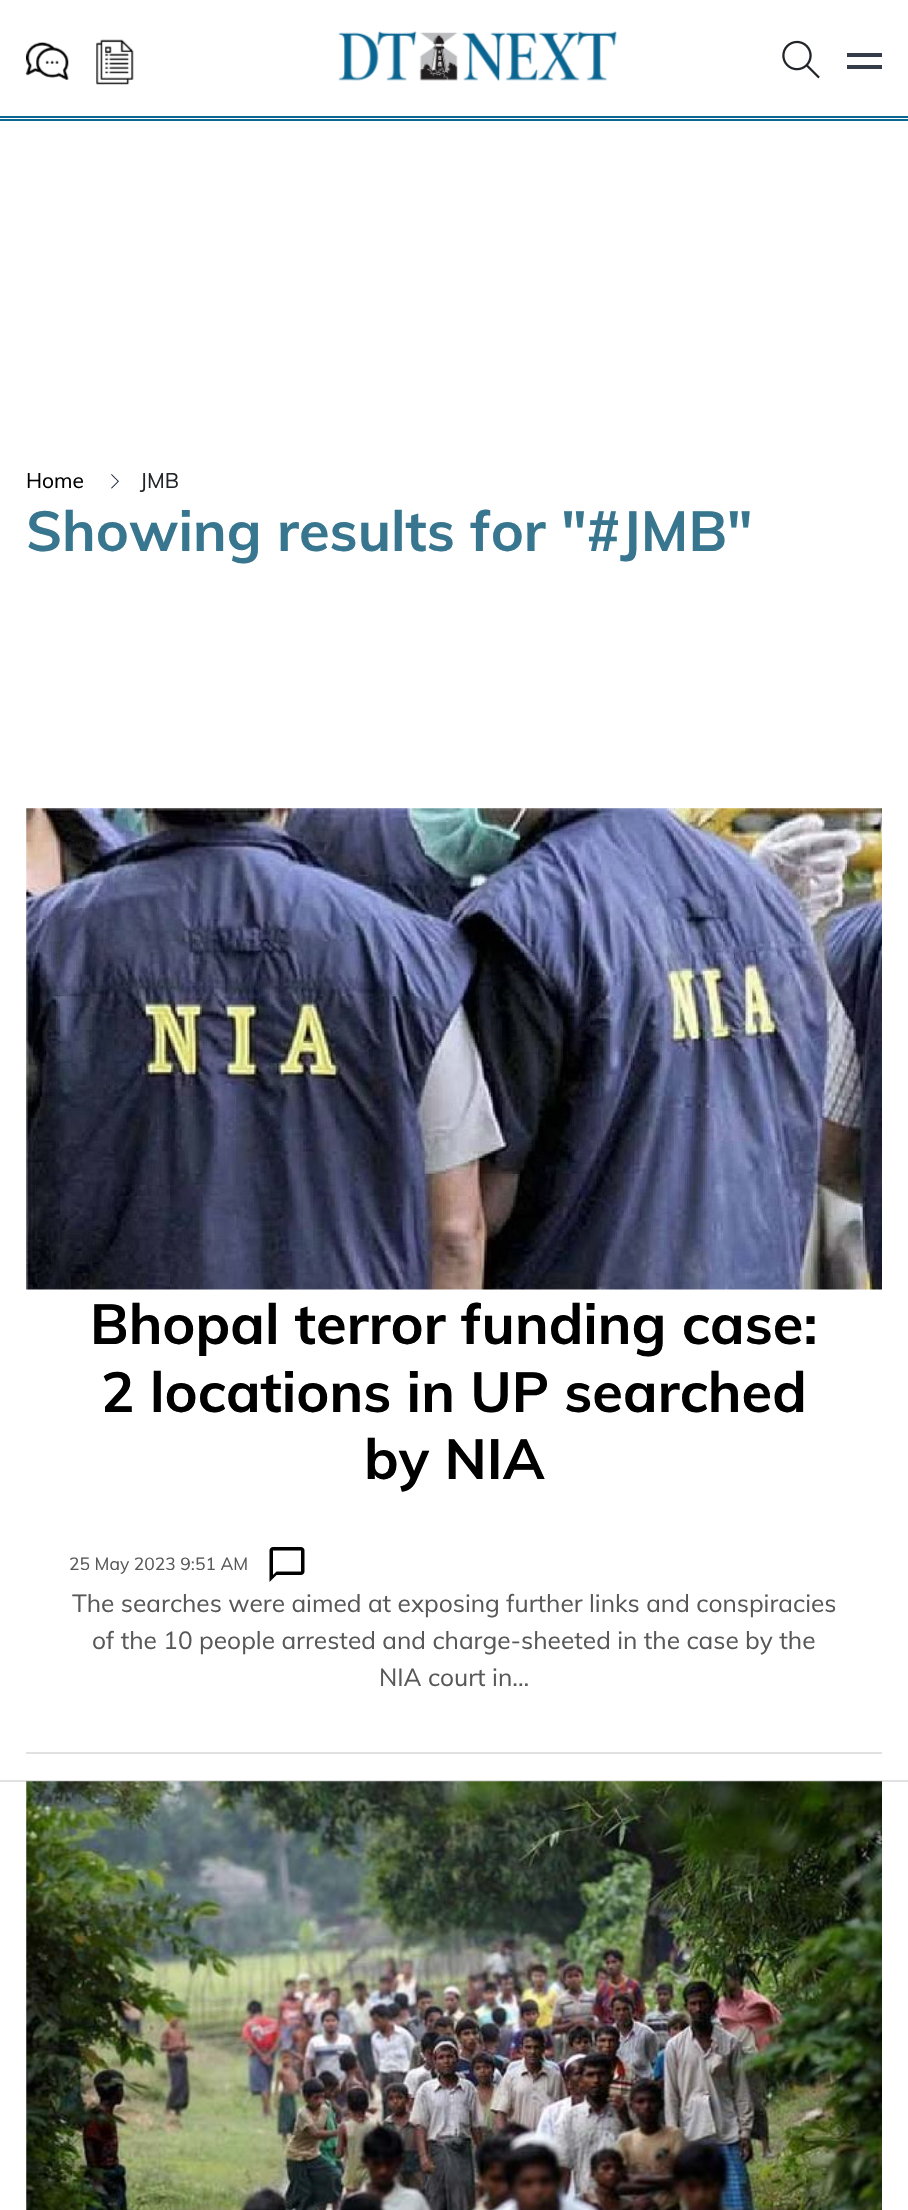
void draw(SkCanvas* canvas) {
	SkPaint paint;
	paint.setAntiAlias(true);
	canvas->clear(0xffffffff);
	canvas->drawImageRect(SkImages::DeferredFromEncodedData(SkData::MakeFromFileName("img1.png")), SkRect::MakeXYWH(26, 42, 43, 38), SkSamplingOptions());
	canvas->drawImageRect(SkImages::DeferredFromEncodedData(SkData::MakeFromFileName("img2.png")), SkRect::MakeXYWH(96, 39, 38, 46), SkSamplingOptions());
	canvas->drawImageRect(SkImages::DeferredFromEncodedData(SkData::MakeFromFileName("img3.png")), SkRect::MakeXYWH(338, 31, 279, 50), SkSamplingOptions());
	canvas->drawImageRect(SkImages::DeferredFromEncodedData(SkData::MakeFromFileName("img4.png")), SkRect::MakeXYWH(782, 40, 38, 39), SkSamplingOptions());
	paint.setColor(0xff353c49);
	canvas->drawRect(SkRect::MakeXYWH(847, 65, 35, 4), paint);
	canvas->drawRect(SkRect::MakeXYWH(847, 53, 35, 4), paint);
	paint.setColor(0xff0b6691);
	canvas->drawRect(SkRect::MakeXYWH(0, 116, 908, 2), paint);
	canvas->drawRect(SkRect::MakeXYWH(0, 119, 908, 2), paint);
	SkFont f1(fontMgr->matchFamilyStyle("Muli", SkFontStyle::Normal()), 21);
	f1.setSubpixel(true);
	paint.setColor(0xff000000);
	canvas->drawString("Home", 26, 488, f1, paint);
	canvas->drawImageRect(SkImages::DeferredFromEncodedData(SkData::MakeFromFileName("img5.png")), SkRect::MakeXYWH(111, 474, 8, 15), SkSamplingOptions());
	paint.setColor(0xff212529);
	canvas->drawString("JMB", 140, 488, f1, paint);
	SkFont f2(fontMgr->matchFamilyStyle("Muli", SkFontStyle::Bold()), 56);
	f2.setSubpixel(true);
	paint.setColor(0xff37768e);
	canvas->drawString("Showing results for \"#JMB\"", 26, 551, f2, paint);
	canvas->drawImageRect(SkImages::DeferredFromEncodedData(SkData::MakeFromFileName("img6.png")), SkRect::MakeXYWH(26, 808, 856, 482), SkSamplingOptions());
	paint.setColor(0xff000000);
	canvas->drawString("Bhopal terror funding case:", 90, 1344, f2, paint);
	canvas->drawString("2 locations in UP searched", 101, 1412, f2, paint);
	canvas->drawString("by NIA", 364, 1479, f2, paint);
	SkFont f3(fontMgr->matchFamilyStyle("Muli", SkFontStyle::Normal()), 17.5);
	f3.setSubpixel(true);
	paint.setColor(0xff595858);
	canvas->drawString("25 May 2023 9:51 AM", 69, 1570, f3, paint);
	canvas->drawImageRect(SkImages::DeferredFromEncodedData(SkData::MakeFromFileName("img7.png")), SkRect::MakeXYWH(269, 1547, 36, 35), SkSamplingOptions());
	SkFont f4(fontMgr->matchFamilyStyle("Muli", SkFontStyle::Normal()), 24.5);
	f4.setSubpixel(true);
	canvas->drawString("The searches were aimed at exposing further links and conspiracies", 72, 1612, f4, paint);
	canvas->drawString("of the 10 people arrested and charge-sheeted in the case by the", 92, 1649, f4, paint);
	canvas->drawString("NIA court in...", 379, 1686, f4, paint);
	paint.setColor(0xffe1e1e1);
	canvas->drawRect(SkRect::MakeXYWH(26, 1752, 856, 2), paint);
	canvas->drawRect(SkRect::MakeXYWH(0, 1780, 908, 2), paint);
	canvas->drawImageRect(SkImages::DeferredFromEncodedData(SkData::MakeFromFileName("img8.png")), SkRect::MakeXYWH(26, 1781, 856, 429), SkSamplingOptions());
}
